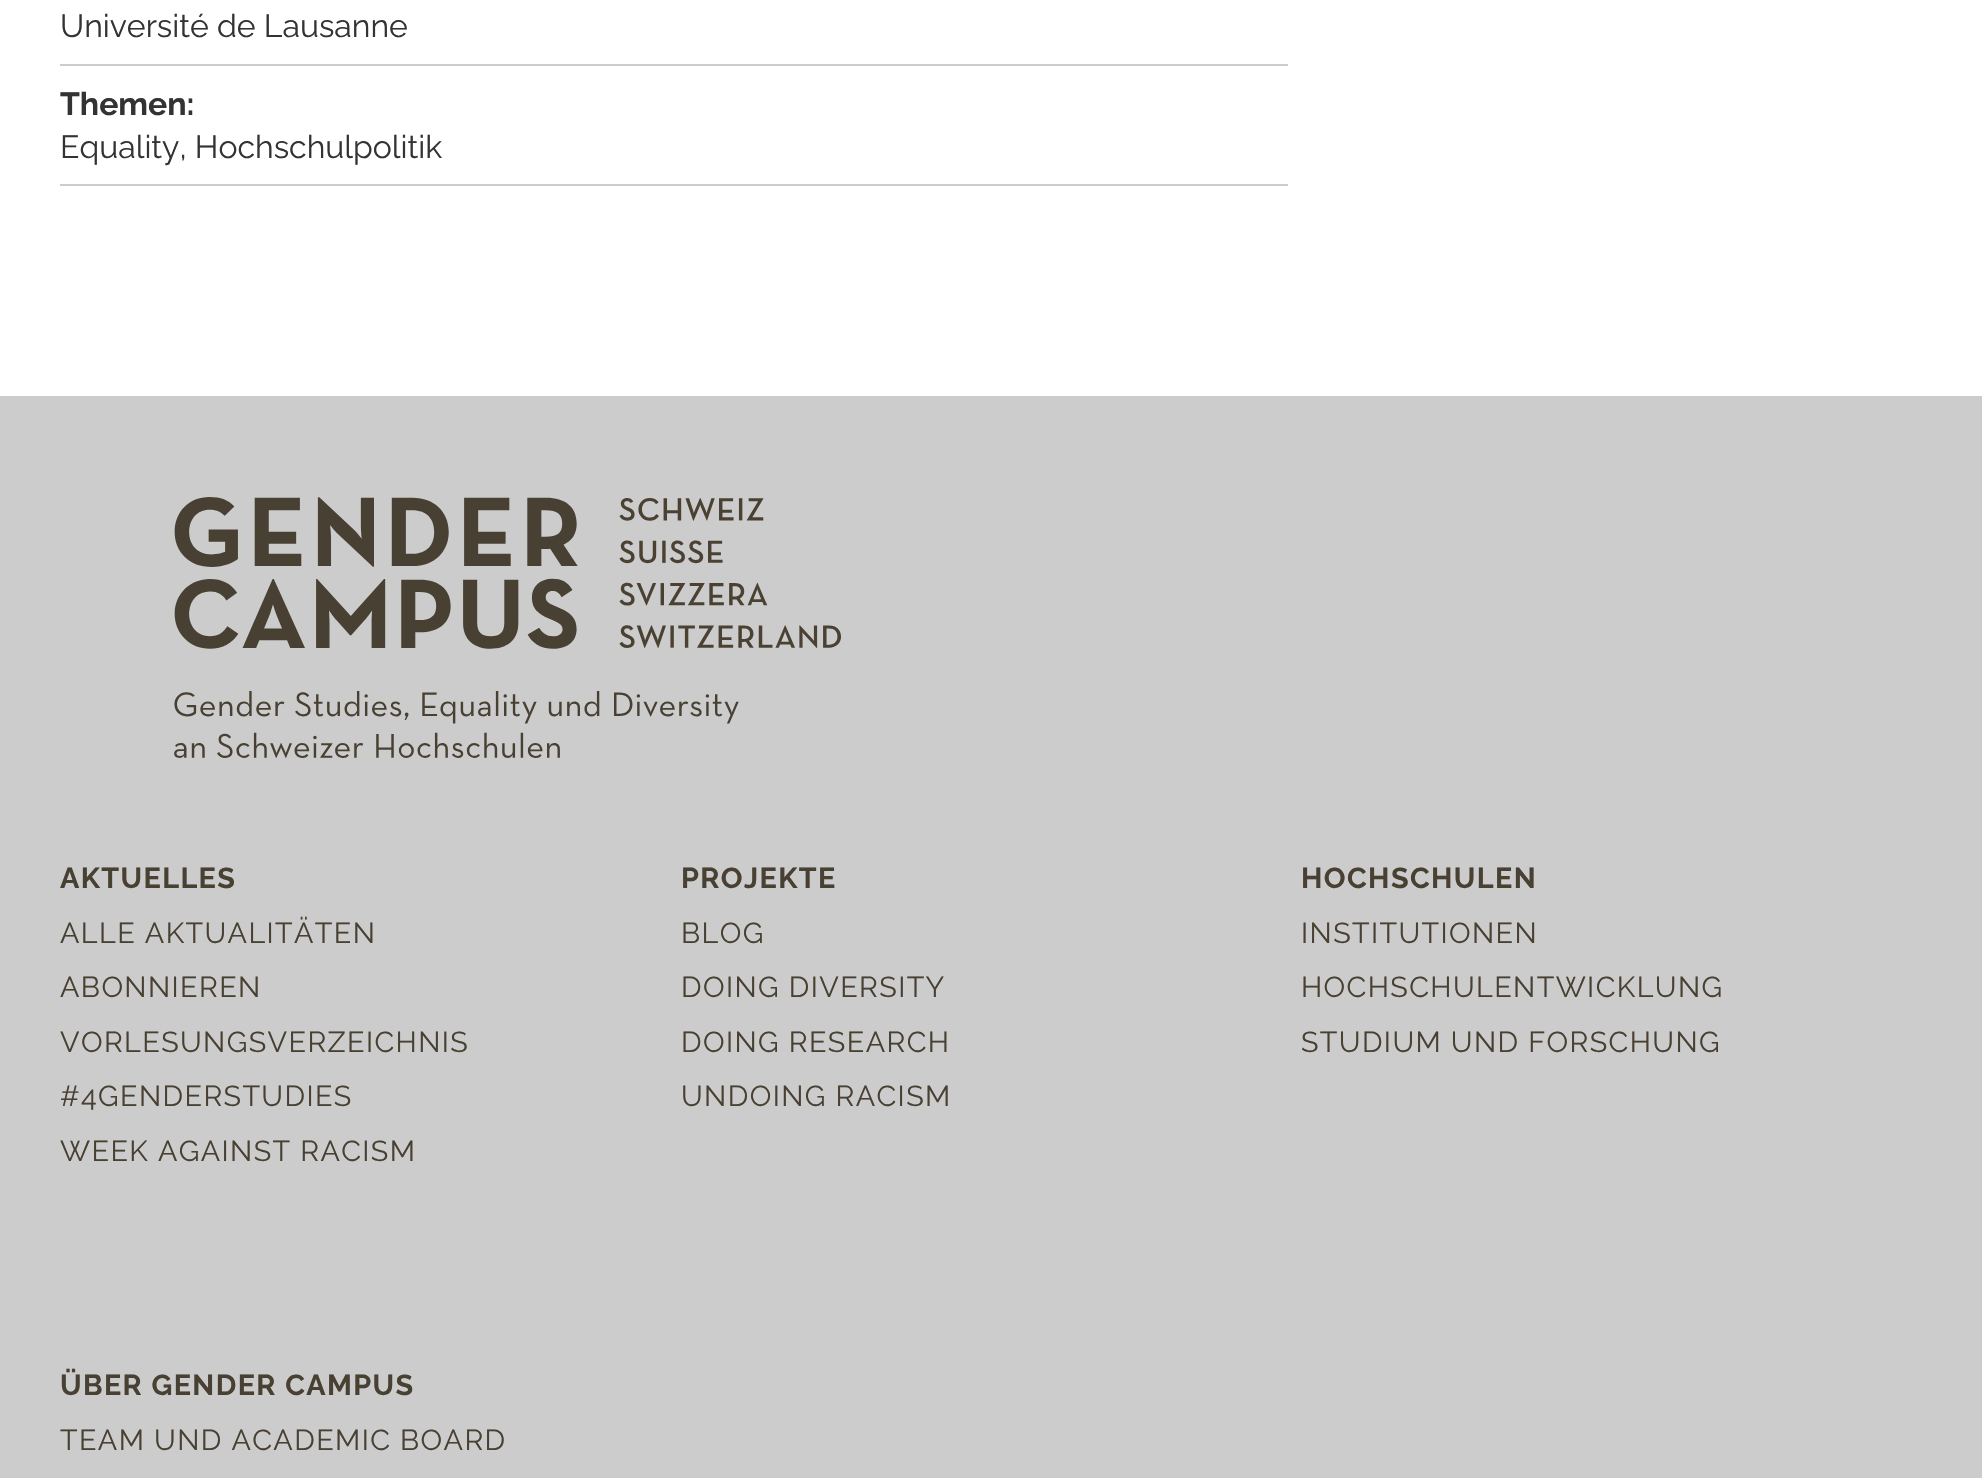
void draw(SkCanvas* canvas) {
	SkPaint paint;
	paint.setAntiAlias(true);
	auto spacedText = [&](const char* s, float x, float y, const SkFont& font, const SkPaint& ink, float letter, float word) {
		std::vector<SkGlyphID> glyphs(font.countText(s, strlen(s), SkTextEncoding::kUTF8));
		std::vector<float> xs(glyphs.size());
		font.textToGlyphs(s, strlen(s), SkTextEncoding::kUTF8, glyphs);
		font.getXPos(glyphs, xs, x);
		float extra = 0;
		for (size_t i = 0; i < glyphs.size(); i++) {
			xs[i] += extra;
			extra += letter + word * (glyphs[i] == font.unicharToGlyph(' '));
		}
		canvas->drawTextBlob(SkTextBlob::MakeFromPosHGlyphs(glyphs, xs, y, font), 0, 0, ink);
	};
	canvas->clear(0xffffffff);
	paint.setColor(0xffcccccc);
	canvas->drawRect(SkRect::MakeXYWH(60, 64, 1228, 2), paint);
	SkFont f1(fontMgr->matchFamilyStyle("Raleway", SkFontStyle(100, SkFontStyle::kNormal_Width, SkFontStyle::kUpright_Slant)), 32);
	f1.setSubpixel(true);
	paint.setColor(0xff333333);
	canvas->drawString("Université de Lausanne", 60, 37, f1, paint);
	paint.setColor(0xffcccccc);
	canvas->drawRect(SkRect::MakeXYWH(60, 184, 1228, 2), paint);
	SkFont f2(fontMgr->matchFamilyStyle("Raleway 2", SkFontStyle(100, SkFontStyle::kNormal_Width, SkFontStyle::kUpright_Slant)), 32);
	f2.setSubpixel(true);
	paint.setColor(0xff333333);
	canvas->drawString("Themen:", 60, 115, f2, paint);
	canvas->drawString("Equality, Hochschulpolitik", 60, 158, f1, paint);
	paint.setColor(0xffcccccc);
	canvas->drawRect(SkRect::MakeXYWH(0, 396, 1982, 1082), paint);
	canvas->drawImageRect(SkImages::DeferredFromEncodedData(SkData::MakeFromFileName("img1.png")), SkRect::MakeXYWH(174, 497, 667, 261), SkSamplingOptions());
	SkFont f3(fontMgr->matchFamilyStyle("Raleway 2", SkFontStyle(100, SkFontStyle::kNormal_Width, SkFontStyle::kUpright_Slant)), 28.75);
	f3.setSubpixel(true);
	paint.setColor(0xff484032);
	spacedText("AKTUELLES", 60, 888, f3, paint, 1.4, 0);
	SkFont f4(fontMgr->matchFamilyStyle("Raleway", SkFontStyle(100, SkFontStyle::kNormal_Width, SkFontStyle::kUpright_Slant)), 28.75);
	f4.setSubpixel(true);
	spacedText("ALLE AKTUALITÄTEN", 60, 943, f4, paint, 1.4, 0);
	spacedText("ABONNIEREN", 60, 997, f4, paint, 1.4, 0);
	spacedText("VORLESUNGSVERZEICHNIS", 60, 1052, f4, paint, 1.4, 0);
	spacedText("#4GENDERSTUDIES", 60, 1106, f4, paint, 1.4, 0);
	spacedText("WEEK AGAINST RACISM", 60, 1161, f4, paint, 1.4, 0);
	spacedText("PROJEKTE", 681, 888, f3, paint, 1.4, 0);
	spacedText("BLOG", 681, 943, f4, paint, 1.4, 0);
	spacedText("DOING DIVERSITY", 681, 997, f4, paint, 1.4, 0);
	spacedText("DOING RESEARCH", 681, 1052, f4, paint, 1.4, 0);
	spacedText("UNDOING RACISM", 681, 1106, f4, paint, 1.4, 0);
	spacedText("HOCHSCHULEN", 1301, 888, f3, paint, 1.4, 0);
	spacedText("INSTITUTIONEN", 1301, 943, f4, paint, 1.4, 0);
	spacedText("HOCHSCHULENTWICKLUNG", 1301, 997, f4, paint, 1.4, 0);
	spacedText("STUDIUM UND FORSCHUNG", 1301, 1052, f4, paint, 1.4, 0);
	spacedText("ÜBER GENDER CAMPUS", 60, 1395, f3, paint, 1.4, 0);
	spacedText("TEAM UND ACADEMIC BOARD", 60, 1450, f4, paint, 1.4, 0);
}
